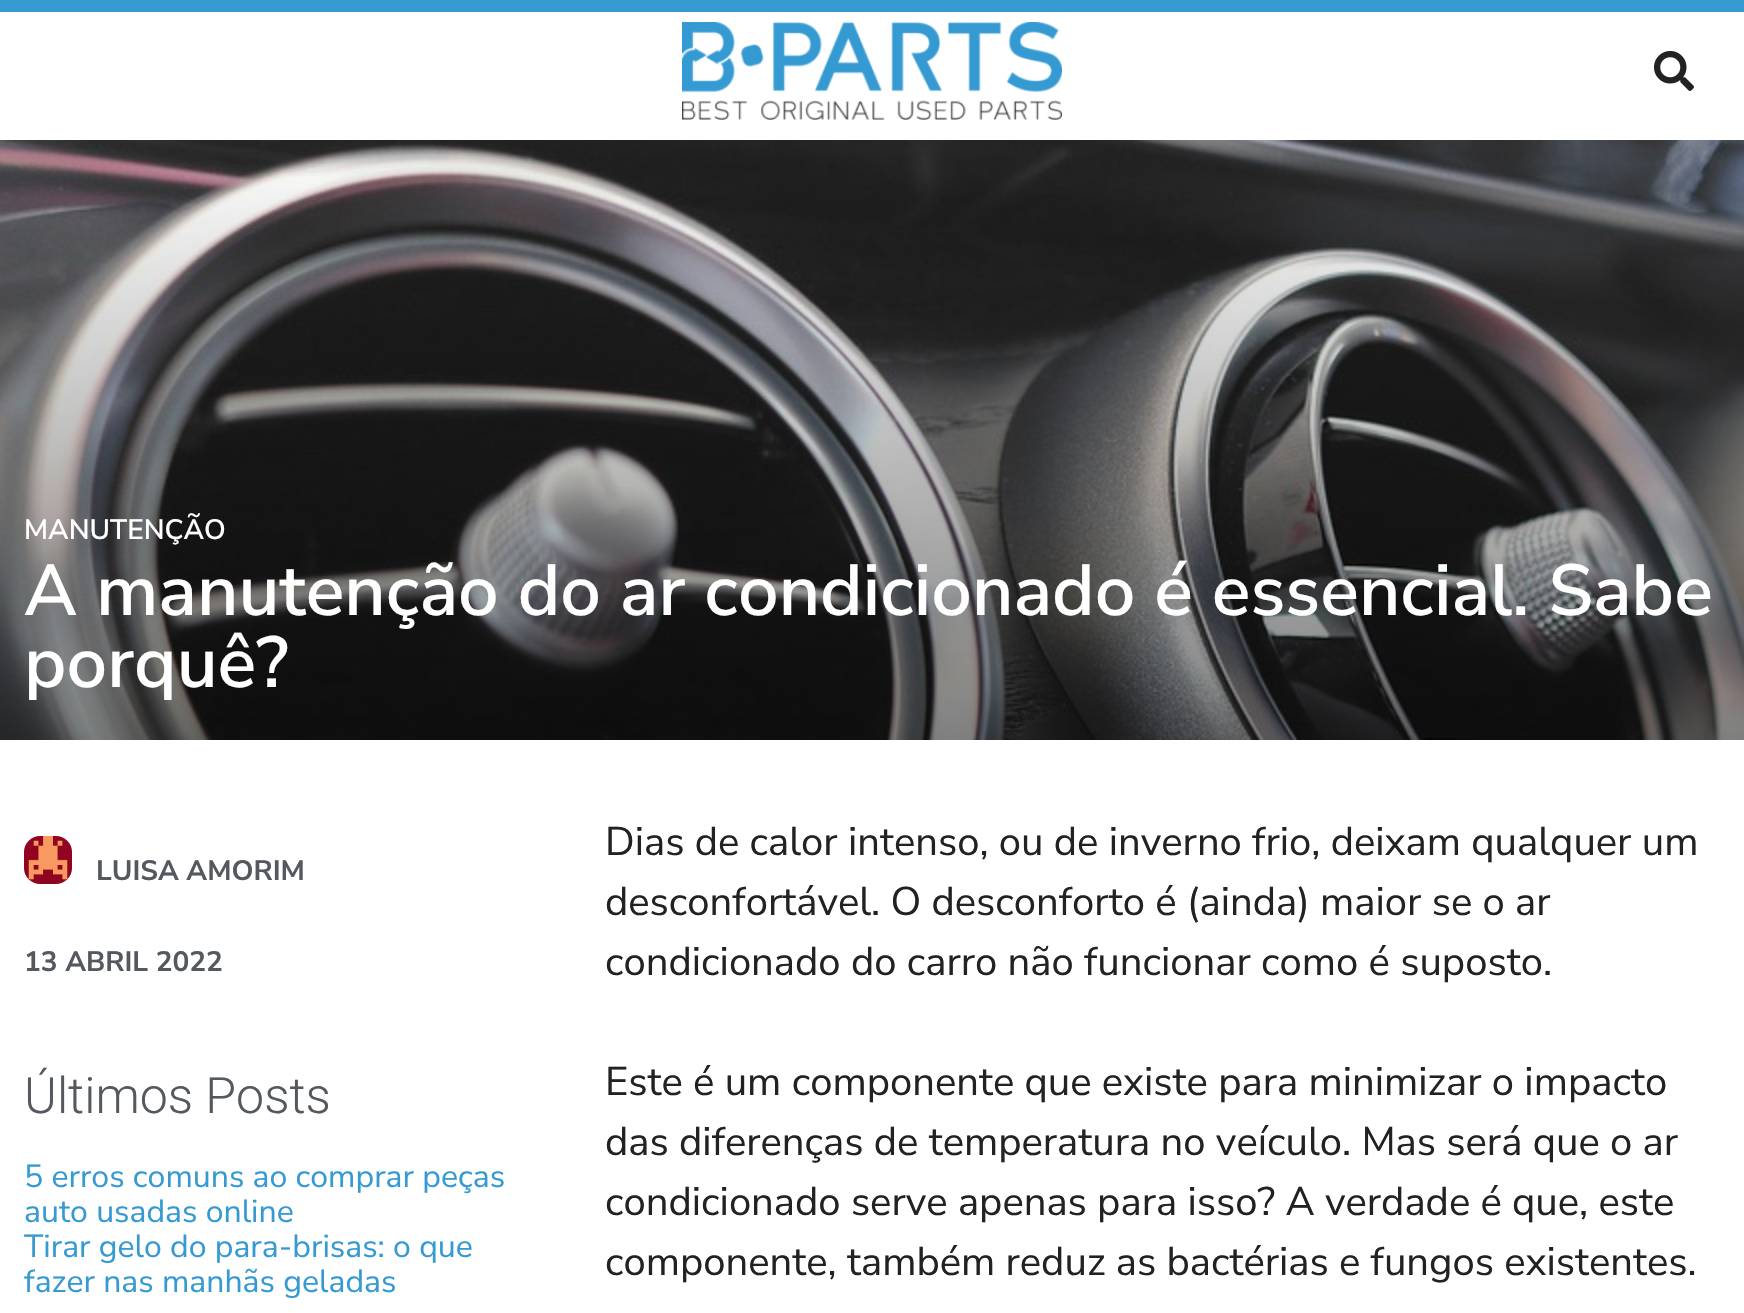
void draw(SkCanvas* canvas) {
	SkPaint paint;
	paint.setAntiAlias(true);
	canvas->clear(0xffffffff);
	paint.setColor(0xff359ad2);
	canvas->drawRect(SkRect::MakeXYWH(0, 0, 1744, 12), paint);
	canvas->drawImageRect(SkImages::DeferredFromEncodedData(SkData::MakeFromFileName("img1.png")), SkRect::MakeXYWH(682, 22, 380, 98), SkSamplingOptions());
	canvas->drawImageRect(SkImages::DeferredFromEncodedData(SkData::MakeFromFileName("img2.png")), SkRect::MakeXYWH(1654, 51, 40, 40), SkSamplingOptions());
	canvas->drawImageRect(SkImages::DeferredFromEncodedData(SkData::MakeFromFileName("img3.png")), SkRect::MakeXYWH(0, 140, 1744, 600), SkSamplingOptions());
	SkFont f1(fontMgr->matchFamilyStyle("Nunito Sans", SkFontStyle(600, SkFontStyle::kNormal_Width, SkFontStyle::kUpright_Slant)), 28);
	f1.setSubpixel(true);
	paint.setColor(0xffffffff);
	canvas->drawString("MANUTENÇÃO", 24, 539, f1, paint);
	SkFont f2(fontMgr->matchFamilyStyle("Nunito Sans", SkFontStyle(600, SkFontStyle::kNormal_Width, SkFontStyle::kUpright_Slant)), 72);
	f2.setSubpixel(true);
	canvas->drawString("A manutenção do ar condicionado é essencial. Sabe", 24, 615, f2, paint);
	canvas->drawString("porquê?", 24, 687, f2, paint);
	canvas->drawImageRect(SkImages::DeferredFromEncodedData(SkData::MakeFromFileName("img4.png")), SkRect::MakeXYWH(24, 836, 48, 48), SkSamplingOptions());
	SkFont f3(fontMgr->matchFamilyStyle("Nunito Sans", SkFontStyle::Bold()), 28);
	f3.setSubpixel(true);
	paint.setColor(0xff54595f);
	canvas->drawString("LUISA AMORIM", 96, 880, f3, paint);
	canvas->drawString("13 ABRIL 2022", 24, 971, f3, paint);
	SkFont f4(fontMgr->matchFamilyStyle("Roboto", SkFontStyle(300, SkFontStyle::kNormal_Width, SkFontStyle::kUpright_Slant)), 50);
	f4.setSubpixel(true);
	canvas->drawString("Últimos Posts", 24, 1113, f4, paint);
	SkFont f5(fontMgr->matchFamilyStyle("Nunito Sans", SkFontStyle::Normal()), 32);
	f5.setSubpixel(true);
	paint.setColor(0xff359ad2);
	canvas->drawString("5 erros comuns ao comprar peças", 24, 1187, f5, paint);
	canvas->drawString("auto usadas online", 24, 1222, f5, paint);
	canvas->drawString("Tirar gelo do para-brisas: o que", 24, 1257, f5, paint);
	canvas->drawString("fazer nas manhãs geladas", 24, 1292, f5, paint);
	SkFont f6(fontMgr->matchFamilyStyle("Nunito Sans", SkFontStyle::Normal()), 40);
	f6.setSubpixel(true);
	paint.setColor(0xff222222);
	canvas->drawString("Dias de calor intenso, ou de inverno frio, deixam qualquer um", 605, 855, f6, paint);
	canvas->drawString("desconfortável. O desconforto é (ainda) maior se o ar", 605, 915, f6, paint);
	canvas->drawString("condicionado do carro não funcionar como é suposto.", 605, 975, f6, paint);
	canvas->drawString("Este é um componente que existe para minimizar o impacto", 605, 1095, f6, paint);
	canvas->drawString("das diferenças de temperatura no veículo. Mas será que o ar", 605, 1155, f6, paint);
	canvas->drawString("condicionado serve apenas para isso? A verdade é que, este", 605, 1215, f6, paint);
	canvas->drawString("componente, também reduz as bactérias e fungos existentes.", 605, 1275, f6, paint);
}
